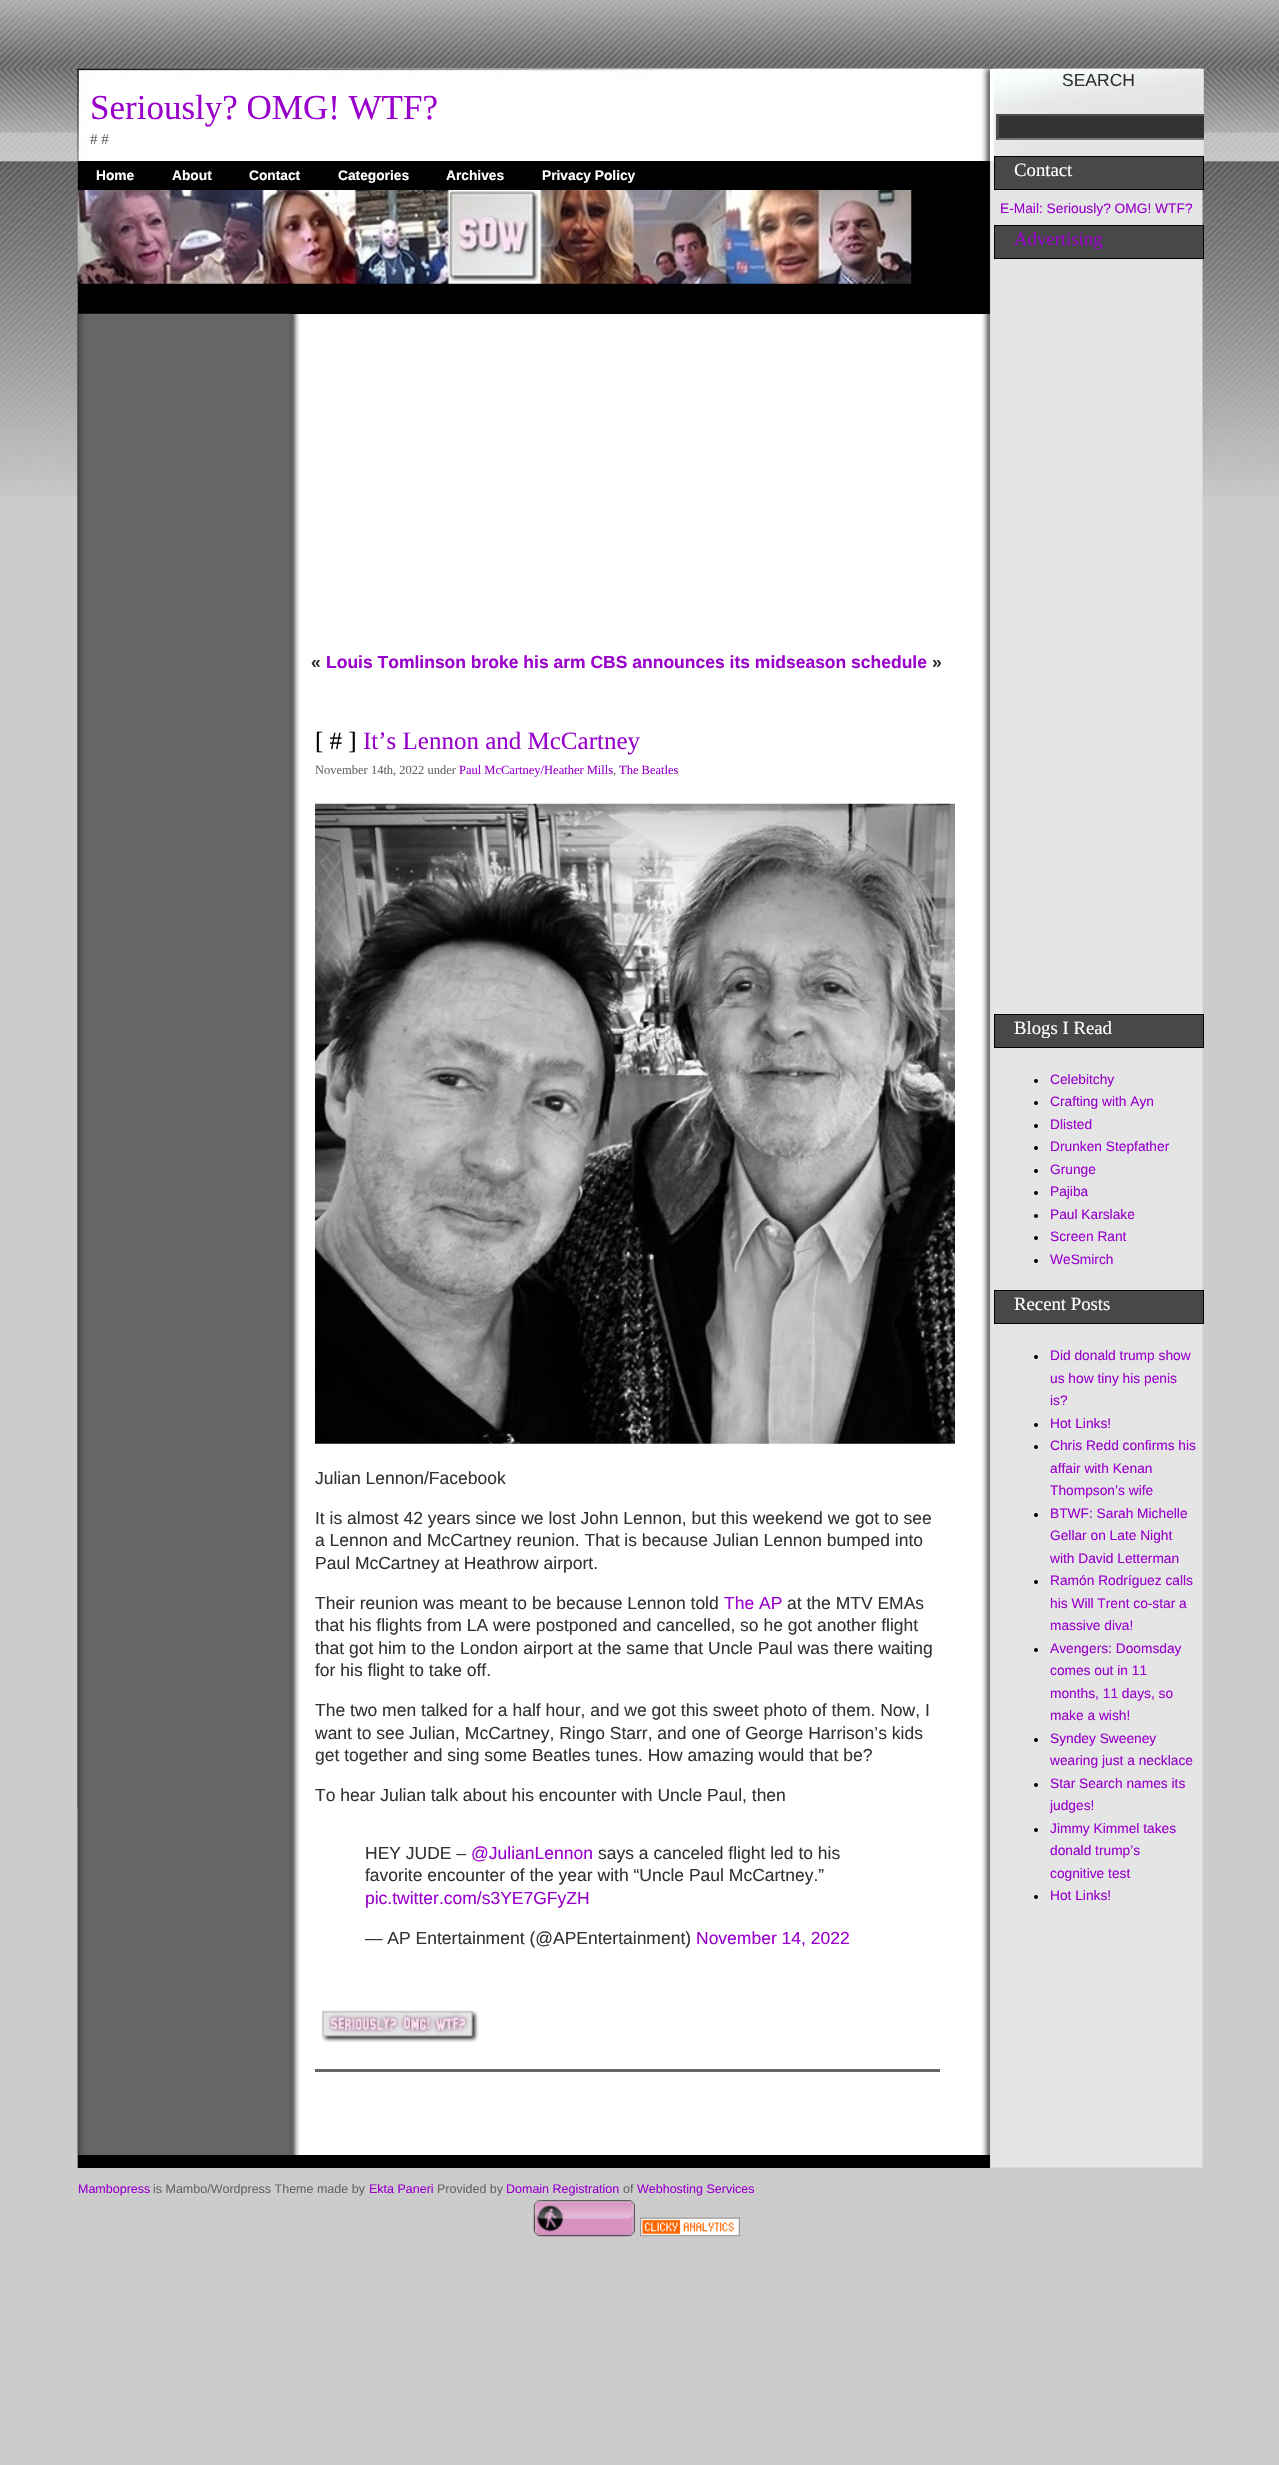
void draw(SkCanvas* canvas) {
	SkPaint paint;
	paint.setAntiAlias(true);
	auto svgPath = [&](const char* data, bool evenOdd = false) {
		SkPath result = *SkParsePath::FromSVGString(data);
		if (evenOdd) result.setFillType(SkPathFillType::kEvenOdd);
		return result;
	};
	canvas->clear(0xffcccccc);
	canvas->drawImageRect(SkImages::DeferredFromEncodedData(SkData::MakeFromFileName("img1.png")), SkRect::MakeXYWH(0, 0, 1279, 497), SkSamplingOptions());
	canvas->drawImageRect(SkImages::DeferredFromEncodedData(SkData::MakeFromFileName("img2.png")), SkRect::MakeXYWH(77, 68, 1126, 2100), SkSamplingOptions());
	paint.setColor(0xffffffff);
	canvas->drawRect(SkRect::MakeXYWH(990, 69, 4, 92), paint);
	canvas->drawImageRect(SkImages::DeferredFromEncodedData(SkData::MakeFromFileName("img3.png")), SkRect::MakeXYWH(77, 68, 913, 94), SkSamplingOptions());
	SkFont f1(fontMgr->matchFamilyStyle("Liberation Serif", SkFontStyle::Normal()), 35);
	f1.setSubpixel(true);
	paint.setColor(0xff9900cc);
	canvas->drawString("Seriously? OMG! WTF?", 90, 119, f1, paint);
	SkFont f2(fontMgr->matchFamilyStyle("Liberation Serif", SkFontStyle::Normal()), 15);
	f2.setSubpixel(true);
	paint.setColor(0xff666666);
	canvas->drawString("# #", 90, 144, f2, paint);
	paint.setColor(0xff000000);
	canvas->drawRect(SkRect::MakeXYWH(78, 161, 912, 153), paint);
	SkFont f3(fontMgr->matchFamilyStyle("Liberation Sans", SkFontStyle::Bold()), 13.75);
	f3.setSubpixel(true);
	paint.setColor(0xffffffff);
	canvas->drawString("Home", 96, 180, f3, paint);
	canvas->drawString("About", 172, 180, f3, paint);
	canvas->drawString("Contact", 249, 180, f3, paint);
	canvas->drawString("Categories", 338, 180, f3, paint);
	canvas->drawString("Archives", 446, 180, f3, paint);
	canvas->drawString("Privacy Policy", 542, 180, f3, paint);
	canvas->drawImageRect(SkImages::DeferredFromEncodedData(SkData::MakeFromFileName("img4.png")), SkRect::MakeXYWH(77, 190, 835, 94), SkSamplingOptions());
	canvas->drawImageRect(SkImages::DeferredFromEncodedData(SkData::MakeFromFileName("img5.png")), SkRect::MakeXYWH(77, 313, 215, 1495), SkSamplingOptions());
	SkFont f4(fontMgr->matchFamilyStyle("Liberation Sans", SkFontStyle::Bold()), 17.5);
	f4.setSubpixel(true);
	paint.setColor(0xff333333);
	canvas->drawString("«", 311, 668, f4, paint);
	paint.setColor(0xff9900cc);
	canvas->drawString("Louis Tomlinson broke his arm CBS announces its midseason schedule", 326, 668, f4, paint);
	paint.setColor(0xff333333);
	canvas->drawString("»", 932, 668, f4, paint);
	SkFont f5(fontMgr->matchFamilyStyle("Liberation Serif", SkFontStyle::Normal()), 25);
	f5.setSubpixel(true);
	paint.setColor(0xff000000);
	canvas->drawString("[ # ]", 315, 749, f5, paint);
	paint.setColor(0xff9900cc);
	canvas->drawString("It’s Lennon and McCartney", 363, 749, f5, paint);
	SkFont f6(fontMgr->matchFamilyStyle("Liberation Serif", SkFontStyle::Normal()), 12.5);
	f6.setSubpixel(true);
	paint.setColor(0xff666666);
	canvas->drawString("November 14th, 2022 under", 315, 774, f6, paint);
	paint.setColor(0xff9900cc);
	canvas->drawString("Paul McCartney/Heather Mills", 459, 774, f6, paint);
	paint.setColor(0xff666666);
	canvas->drawString(",", 613, 774, f6, paint);
	paint.setColor(0xff9900cc);
	canvas->drawString("The Beatles", 619, 774, f6, paint);
	canvas->drawImageRect(SkImages::DeferredFromEncodedData(SkData::MakeFromFileName("img6.png")), SkRect::MakeXYWH(315, 803, 640, 641), SkSamplingOptions());
	SkFont f7(fontMgr->matchFamilyStyle("Liberation Sans", SkFontStyle::Normal()), 17.5);
	f7.setSubpixel(true);
	paint.setColor(0xff333333);
	canvas->drawString("Julian Lennon/Facebook", 315, 1484, f7, paint);
	canvas->drawString("It is almost 42 years since we lost John Lennon, but this weekend we got to see", 315, 1524, f7, paint);
	canvas->drawString("a Lennon and McCartney reunion. That is because Julian Lennon bumped into", 315, 1546, f7, paint);
	canvas->drawString("Paul McCartney at Heathrow airport.", 315, 1569, f7, paint);
	canvas->drawString("Their reunion was meant to be because Lennon told", 315, 1609, f7, paint);
	paint.setColor(0xff9900cc);
	canvas->drawString("The AP", 724, 1609, f7, paint);
	paint.setColor(0xff333333);
	canvas->drawString("at the MTV EMAs", 787, 1609, f7, paint);
	canvas->drawString("that his flights from LA were postponed and cancelled, so he got another flight", 315, 1631, f7, paint);
	canvas->drawString("that got him to the London airport at the same that Uncle Paul was there waiting", 315, 1654, f7, paint);
	canvas->drawString("for his flight to take off.", 315, 1676, f7, paint);
	canvas->drawString("The two men talked for a half hour, and we got this sweet photo of them. Now, I", 315, 1716, f7, paint);
	canvas->drawString("want to see Julian, McCartney, Ringo Starr, and one of George Harrison’s kids", 315, 1739, f7, paint);
	canvas->drawString("get together and sing some Beatles tunes. How amazing would that be?", 315, 1761, f7, paint);
	canvas->drawString("To hear Julian talk about his encounter with Uncle Paul, then", 315, 1801, f7, paint);
	canvas->drawString("HEY JUDE –", 365, 1859, f7, paint);
	paint.setColor(0xff9900cc);
	canvas->drawString("@JulianLennon", 471, 1859, f7, paint);
	paint.setColor(0xff333333);
	canvas->drawString("says a canceled flight led to his", 598, 1859, f7, paint);
	canvas->drawString("favorite encounter of the year with “Uncle Paul McCartney.”", 365, 1881, f7, paint);
	paint.setColor(0xff9900cc);
	canvas->drawString("pic.twitter.com/s3YE7GFyZH", 365, 1904, f7, paint);
	paint.setColor(0xff333333);
	canvas->drawString("— AP Entertainment (@APEntertainment)", 365, 1944, f7, paint);
	paint.setColor(0xff9900cc);
	canvas->drawString("November 14, 2022", 696, 1944, f7, paint);
	canvas->drawImageRect(SkImages::DeferredFromEncodedData(SkData::MakeFromFileName("img7.png")), SkRect::MakeXYWH(321, 2010, 158, 33), SkSamplingOptions());
	paint.setColor(0xff666666);
	canvas->drawRect(SkRect::MakeXYWH(315, 2069, 625, 3), paint);
	canvas->drawImageRect(SkImages::DeferredFromEncodedData(SkData::MakeFromFileName("img8.png")), SkRect::MakeXYWH(993, 68, 211, 89), SkSamplingOptions());
	paint.setColor(0xff333333);
	canvas->drawString("SEARCH", 1062, 86, f7, paint);
	canvas->drawRect(SkRect::MakeXYWH(996, 114, 208, 26), paint);
	canvas->save();
	canvas->clipRect(SkRect::MakeXYWH(994, 69, 210, 87));
	paint.setColor(0xff4f4f4f);
	canvas->drawPath(svgPath("M996 114H1218L1215 116H999Z"), paint);
	paint.setColor(0xff767676);
	canvas->drawPath(svgPath("M1218 140H996L999 138H1215Z"), paint);
	canvas->restore();
	paint.setColor(0xff4f4f4f);
	canvas->drawPath(svgPath("M996 140V114L999 116V137.5Z"), paint);
	paint.setColor(0xff484848);
	canvas->drawRect(SkRect::MakeXYWH(994.5, 156.5, 209, 33), paint);
	paint.setStroke(true);
	paint.setStrokeWidth(1);
	paint.setColor(0xff000000);
	canvas->drawRect(SkRect::MakeXYWH(994.5, 156.5, 209, 33), paint);
	SkFont f8(fontMgr->matchFamilyStyle("Liberation Serif", SkFontStyle::Normal()), 18.75);
	f8.setSubpixel(true);
	paint.setStroke(false);
	paint.setColor(0xffffffff);
	canvas->drawString("Contact", 1014, 176, f8, paint);
	SkFont f9(fontMgr->matchFamilyStyle("Liberation Sans", SkFontStyle::Normal()), 13.75);
	f9.setSubpixel(true);
	paint.setColor(0xff9900cc);
	canvas->drawString("E-Mail: Seriously? OMG! WTF?", 1000, 213, f9, paint);
	paint.setColor(0xff484848);
	canvas->drawRect(SkRect::MakeXYWH(994.5, 225.5, 209, 33), paint);
	paint.setStroke(true);
	paint.setColor(0xff000000);
	canvas->drawRect(SkRect::MakeXYWH(994.5, 225.5, 209, 33), paint);
	paint.setStroke(false);
	paint.setColor(0xff9900cc);
	canvas->drawString("Advertising", 1014, 245, f8, paint);
	paint.setColor(0xff484848);
	canvas->drawRect(SkRect::MakeXYWH(994.5, 1014.5, 209, 33), paint);
	paint.setStroke(true);
	paint.setColor(0xff000000);
	canvas->drawRect(SkRect::MakeXYWH(994.5, 1014.5, 209, 33), paint);
	paint.setStroke(false);
	paint.setColor(0xffffffff);
	canvas->drawString("Blogs I Read", 1014, 1034, f8, paint);
	paint.setColor(0xff030303);
	canvas->drawCircle(1036, 1081, 2, paint);
	paint.setColor(0xff9900cc);
	canvas->drawString("Celebitchy", 1050, 1084, f9, paint);
	paint.setColor(0xff030303);
	canvas->drawCircle(1036, 1103, 2, paint);
	paint.setColor(0xff9900cc);
	canvas->drawString("Crafting with Ayn", 1050, 1106, f9, paint);
	paint.setColor(0xff030303);
	canvas->drawCircle(1036, 1126, 2, paint);
	paint.setColor(0xff9900cc);
	canvas->drawString("Dlisted", 1050, 1129, f9, paint);
	paint.setColor(0xff030303);
	canvas->drawCircle(1036, 1148, 2, paint);
	paint.setColor(0xff9900cc);
	canvas->drawString("Drunken Stepfather", 1050, 1151, f9, paint);
	paint.setColor(0xff030303);
	canvas->drawCircle(1036, 1171, 2, paint);
	paint.setColor(0xff9900cc);
	canvas->drawString("Grunge", 1050, 1174, f9, paint);
	paint.setColor(0xff030303);
	canvas->drawCircle(1036, 1193, 2, paint);
	paint.setColor(0xff9900cc);
	canvas->drawString("Pajiba", 1050, 1196, f9, paint);
	paint.setColor(0xff030303);
	canvas->drawCircle(1036, 1216, 2, paint);
	paint.setColor(0xff9900cc);
	canvas->drawString("Paul Karslake", 1050, 1219, f9, paint);
	paint.setColor(0xff030303);
	canvas->drawCircle(1036, 1238, 2, paint);
	paint.setColor(0xff9900cc);
	canvas->drawString("Screen Rant", 1050, 1241, f9, paint);
	paint.setColor(0xff030303);
	canvas->drawCircle(1036, 1261, 2, paint);
	paint.setColor(0xff9900cc);
	canvas->drawString("WeSmirch", 1050, 1264, f9, paint);
	paint.setColor(0xff484848);
	canvas->drawRect(SkRect::MakeXYWH(994.5, 1290.5, 209, 33), paint);
	paint.setStroke(true);
	paint.setColor(0xff000000);
	canvas->drawRect(SkRect::MakeXYWH(994.5, 1290.5, 209, 33), paint);
	paint.setStroke(false);
	paint.setColor(0xffffffff);
	canvas->drawString("Recent Posts", 1014, 1310, f8, paint);
	paint.setColor(0xff030303);
	canvas->drawCircle(1036, 1357, 2, paint);
	paint.setColor(0xff9900cc);
	canvas->drawString("Did donald trump show", 1050, 1360, f9, paint);
	canvas->drawString("us how tiny his penis", 1050, 1383, f9, paint);
	canvas->drawString("is?", 1050, 1405, f9, paint);
	paint.setColor(0xff030303);
	canvas->drawCircle(1036, 1425, 2, paint);
	paint.setColor(0xff9900cc);
	canvas->drawString("Hot Links!", 1050, 1428, f9, paint);
	paint.setColor(0xff030303);
	canvas->drawCircle(1036, 1447, 2, paint);
	paint.setColor(0xff9900cc);
	canvas->drawString("Chris Redd confirms his", 1050, 1450, f9, paint);
	canvas->drawString("affair with Kenan", 1050, 1473, f9, paint);
	canvas->drawString("Thompson’s wife", 1050, 1495, f9, paint);
	paint.setColor(0xff030303);
	canvas->drawCircle(1036, 1515, 2, paint);
	paint.setColor(0xff9900cc);
	canvas->drawString("BTWF: Sarah Michelle", 1050, 1518, f9, paint);
	canvas->drawString("Gellar on Late Night", 1050, 1540, f9, paint);
	canvas->drawString("with David Letterman", 1050, 1563, f9, paint);
	paint.setColor(0xff030303);
	canvas->drawCircle(1036, 1582, 2, paint);
	paint.setColor(0xff9900cc);
	canvas->drawString("Ramón Rodríguez calls", 1050, 1585, f9, paint);
	canvas->drawString("his Will Trent co-star a", 1050, 1608, f9, paint);
	canvas->drawString("massive diva!", 1050, 1630, f9, paint);
	paint.setColor(0xff030303);
	canvas->drawCircle(1036, 1650, 2, paint);
	paint.setColor(0xff9900cc);
	canvas->drawString("Avengers: Doomsday", 1050, 1653, f9, paint);
	canvas->drawString("comes out in 11", 1050, 1675, f9, paint);
	canvas->drawString("months, 11 days, so", 1050, 1698, f9, paint);
	canvas->drawString("make a wish!", 1050, 1720, f9, paint);
	paint.setColor(0xff030303);
	canvas->drawCircle(1036, 1740, 2, paint);
	paint.setColor(0xff9900cc);
	canvas->drawString("Syndey Sweeney", 1050, 1743, f9, paint);
	canvas->drawString("wearing just a necklace", 1050, 1765, f9, paint);
	paint.setColor(0xff030303);
	canvas->drawCircle(1036, 1785, 2, paint);
	paint.setColor(0xff9900cc);
	canvas->drawString("Star Search names its", 1050, 1788, f9, paint);
	canvas->drawString("judges!", 1050, 1810, f9, paint);
	paint.setColor(0xff030303);
	canvas->drawCircle(1036, 1830, 2, paint);
	paint.setColor(0xff9900cc);
	canvas->drawString("Jimmy Kimmel takes", 1050, 1833, f9, paint);
	canvas->drawString("donald trump’s", 1050, 1855, f9, paint);
	canvas->drawString("cognitive test", 1050, 1878, f9, paint);
	paint.setColor(0xff030303);
	canvas->drawCircle(1036, 1897, 2, paint);
	paint.setColor(0xff9900cc);
	canvas->drawString("Hot Links!", 1050, 1900, f9, paint);
	paint.setColor(0xff000000);
	canvas->drawRect(SkRect::MakeXYWH(78, 2155, 912, 13), paint);
	SkFont f10(fontMgr->matchFamilyStyle("Liberation Sans", SkFontStyle::Normal()), 12.5);
	f10.setSubpixel(true);
	paint.setColor(0xff9900cc);
	canvas->drawString("Mambopress", 78, 2193, f10, paint);
	paint.setColor(0xff666666);
	canvas->drawString("is Mambo/Wordpress Theme made by", 153, 2193, f10, paint);
	paint.setColor(0xff9900cc);
	canvas->drawString("Ekta Paneri", 369, 2193, f10, paint);
	paint.setColor(0xff666666);
	canvas->drawString("Provided by", 437, 2193, f10, paint);
	paint.setColor(0xff9900cc);
	canvas->drawString("Domain Registration", 506, 2193, f10, paint);
	paint.setColor(0xff666666);
	canvas->drawString("of", 623, 2193, f10, paint);
	paint.setColor(0xff9900cc);
	canvas->drawString("Webhosting Services", 637, 2193, f10, paint);
	canvas->drawImageRect(SkImages::DeferredFromEncodedData(SkData::MakeFromFileName("img9.png")), SkRect::MakeXYWH(533, 2200, 102, 37), SkSamplingOptions());
	canvas->drawImageRect(SkImages::DeferredFromEncodedData(SkData::MakeFromFileName("img10.png")), SkRect::MakeXYWH(640, 2217, 100, 20), SkSamplingOptions());
}
